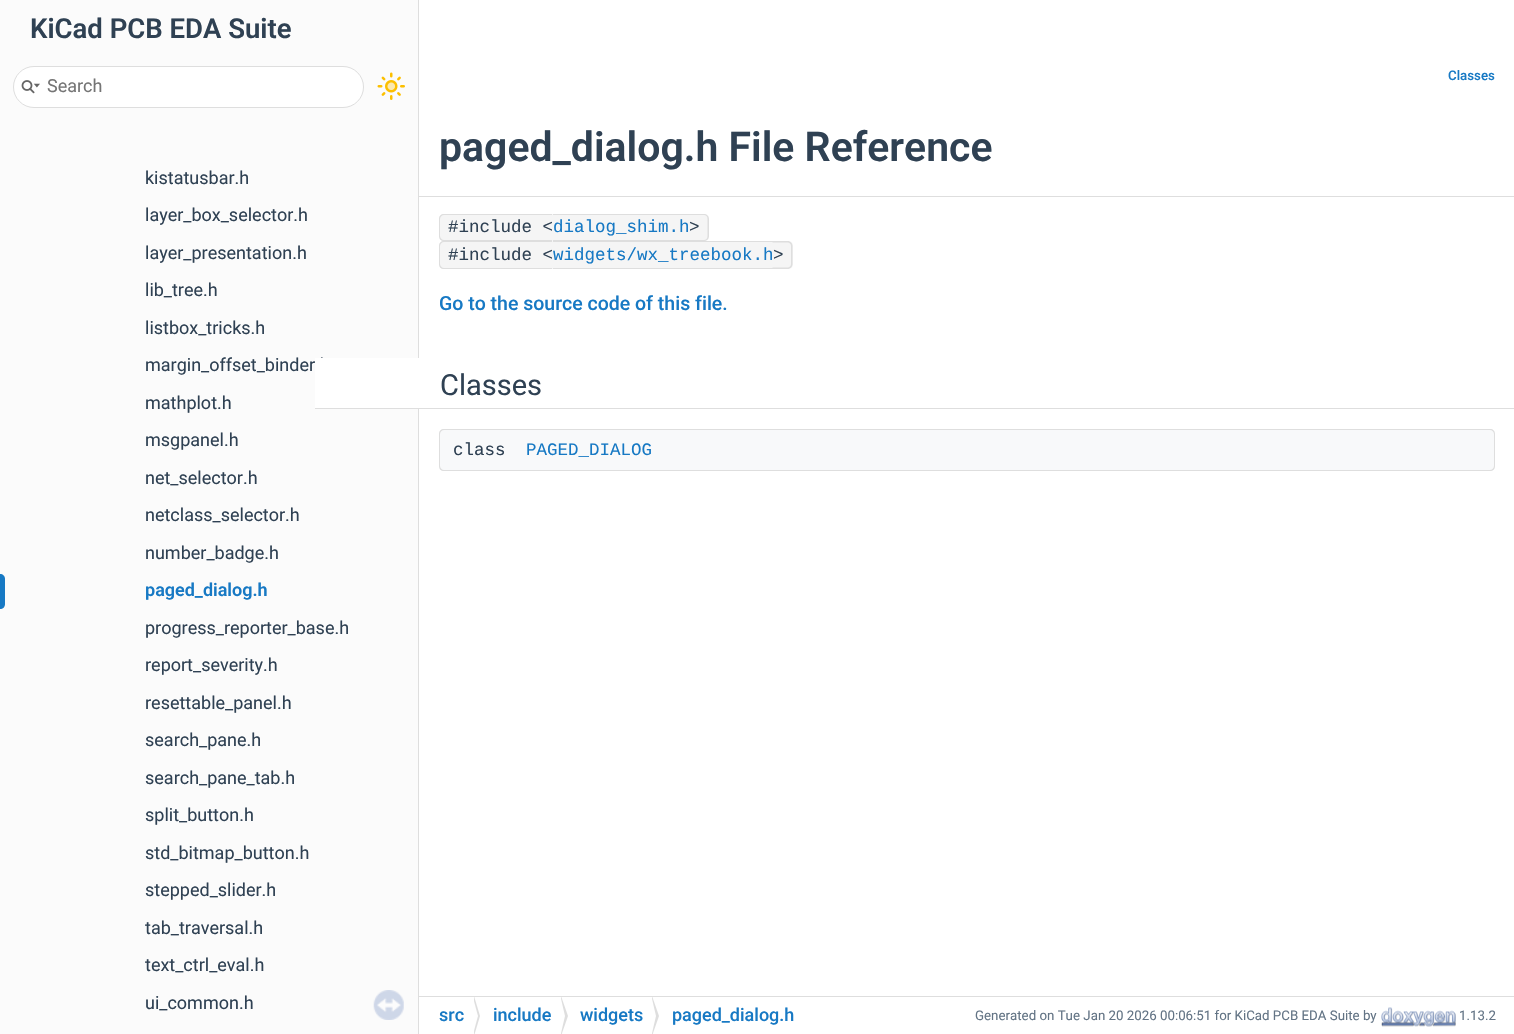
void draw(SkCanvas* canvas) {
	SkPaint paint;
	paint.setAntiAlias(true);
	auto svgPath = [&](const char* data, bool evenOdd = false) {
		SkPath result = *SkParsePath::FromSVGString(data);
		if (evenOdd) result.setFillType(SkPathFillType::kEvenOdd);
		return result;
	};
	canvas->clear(0xffffffff);
	paint.setColor(0xfffbfbfb);
	canvas->drawRect(SkRect::MakeXYWH(0, 0, 418, 1034), paint);
	SkFont f1(fontMgr->matchFamilyStyle("Roboto", SkFontStyle(600, SkFontStyle::kNormal_Width, SkFontStyle::kUpright_Slant)), 27.5);
	f1.setSubpixel(true);
	paint.setColor(0xff2f4153);
	canvas->drawString("KiCad PCB EDA Suite", 30, 38, f1, paint);
	paint.setColor(0xffffffff);
	canvas->drawRoundRect(SkRect::MakeXYWH(13.5, 66.5, 350, 41), 20.5, 20.5, paint);
	paint.setStroke(true);
	paint.setStrokeWidth(1);
	paint.setColor(0xffdedede);
	canvas->drawRoundRect(SkRect::MakeXYWH(13.5, 66.5, 350, 41), 20.5, 20.5, paint);
	canvas->drawImageRect(SkImages::DeferredFromEncodedData(SkData::MakeFromFileName("img1.png")), SkRect::MakeXYWH(21, 80, 19, 14), SkSamplingOptions());
	SkFont f2(fontMgr->matchFamilyStyle("Roboto", SkFontStyle::Normal()), 18);
	f2.setSubpixel(true);
	paint.setStroke(false);
	paint.setColor(0xff757575);
	canvas->drawString("Search", 47, 92, f2, paint);
	canvas->drawImageRect(SkImages::DeferredFromEncodedData(SkData::MakeFromFileName("img2.png")), SkRect::MakeXYWH(377, 72, 28, 28), SkSamplingOptions());
	paint.setColor(0xff2f4153);
	canvas->drawString("kistatusbar.h", 145, 184, f2, paint);
	canvas->drawString("layer_box_selector.h", 145, 221, f2, paint);
	canvas->drawString("layer_presentation.h", 145, 259, f2, paint);
	canvas->drawString("lib_tree.h", 145, 296, f2, paint);
	canvas->drawString("listbox_tricks.h", 145, 334, f2, paint);
	canvas->drawString("margin_offset_binder.h", 145, 371, f2, paint);
	canvas->drawString("mathplot.h", 145, 409, f2, paint);
	canvas->drawString("msgpanel.h", 145, 446, f2, paint);
	canvas->drawString("net_selector.h", 145, 484, f2, paint);
	canvas->drawString("netclass_selector.h", 145, 521, f2, paint);
	canvas->drawString("number_badge.h", 145, 559, f2, paint);
	paint.setColor(0xff1779c4);
	canvas->drawPath(svgPath("M0 574C3 574 5 576 5 579V604C5 607 3 609 0 609Z"), paint);
	SkFont f3(fontMgr->matchFamilyStyle("Roboto", SkFontStyle(600, SkFontStyle::kNormal_Width, SkFontStyle::kUpright_Slant)), 18);
	f3.setSubpixel(true);
	canvas->drawString("paged_dialog.h", 145, 596, f3, paint);
	paint.setColor(0xff2f4153);
	canvas->drawString("progress_reporter_base.h", 145, 634, f2, paint);
	canvas->drawString("report_severity.h", 145, 671, f2, paint);
	canvas->drawString("resettable_panel.h", 145, 709, f2, paint);
	canvas->drawString("search_pane.h", 145, 746, f2, paint);
	canvas->drawString("search_pane_tab.h", 145, 784, f2, paint);
	canvas->drawString("split_button.h", 145, 821, f2, paint);
	canvas->drawString("std_bitmap_button.h", 145, 859, f2, paint);
	canvas->drawString("stepped_slider.h", 145, 896, f2, paint);
	canvas->drawString("tab_traversal.h", 145, 934, f2, paint);
	canvas->drawString("text_ctrl_eval.h", 145, 971, f2, paint);
	canvas->drawString("ui_common.h", 145, 1009, f2, paint);
	canvas->drawImageRect(SkImages::DeferredFromEncodedData(SkData::MakeFromFileName("img3.png")), SkRect::MakeXYWH(373, 990, 31, 30), SkSamplingOptions());
	paint.setColor(0xffdedede);
	canvas->drawPath(svgPath("M418-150V150H419V735V-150Z"), paint);
	canvas->drawRect(SkRect::MakeXYWH(418, 150, 1, 884), paint);
	canvas->drawRect(SkRect::MakeXYWH(419, 196, 1095, 1), paint);
	SkFont f4(fontMgr->matchFamilyStyle("Roboto", SkFontStyle(500, SkFontStyle::kNormal_Width, SkFontStyle::kUpright_Slant)), 13.3);
	f4.setSubpixel(true);
	paint.setColor(0xff1779c4);
	canvas->drawString("Classes", 1448, 80, f4, paint);
	SkFont f5(fontMgr->matchFamilyStyle("Roboto", SkFontStyle(600, SkFontStyle::kNormal_Width, SkFontStyle::kUpright_Slant)), 41);
	f5.setSubpixel(true);
	paint.setColor(0xff2f4153);
	canvas->drawString("paged_dialog.h File Reference", 439, 161, f5, paint);
	paint.setColor(0xfff5f5f5);
	canvas->drawPath(svgPath("M444 214H553V241H444C441 241 439 239 439 236V219C439 216 441 214 444 214Z"), paint);
	paint.setColor(0xffdedede);
	canvas->drawPath(svgPath("M444 214H552V241H444C441 241 439 239 439 236V219C439 216 441 214 444 214ZM444 215H552V240H444C442 240 440 238 440 236V219C440 217 442 215 444 215Z", true), paint);
	SkFont f6(fontMgr->matchFamilyStyle("Liberation Mono", SkFontStyle::Normal()), 17.5);
	f6.setSubpixel(true);
	paint.setColor(0xff2f4153);
	canvas->drawString("#include <", 448, 232, f6, paint);
	paint.setColor(0xffdedede);
	canvas->drawRect(SkRect::MakeXYWH(553, 214, 136, 1), paint);
	paint.setColor(0xfff5f5f5);
	canvas->drawRect(SkRect::MakeXYWH(553, 215, 136, 25), paint);
	paint.setColor(0xff1779c4);
	canvas->drawString("dialog_shim.h", 553, 232, f6, paint);
	paint.setColor(0xffdedede);
	canvas->drawRect(SkRect::MakeXYWH(553, 240, 136, 1), paint);
	paint.setColor(0xfff5f5f5);
	canvas->drawPath(svgPath("M689 214H704C707 214 709 216 709 219V236C709 239 707 241 704 241H689Z"), paint);
	paint.setColor(0xffdedede);
	canvas->drawPath(svgPath("M689 214H704C706.5 214 709 216 709 219V236C709 239 706.5 241 704 241H689ZM689 215H704C706 215 707.5 216.5 707.5 219V236C707.5 238.5 706 240 704 240H689Z", true), paint);
	paint.setColor(0xff2f4153);
	canvas->drawString(">", 689, 232, f6, paint);
	paint.setColor(0xfff5f5f5);
	canvas->drawPath(svgPath("M444 241H553V269H444C441 269 439 267 439 264V246C439 243 441 241 444 241Z"), paint);
	paint.setColor(0xffdedede);
	canvas->drawPath(svgPath("M444 241H552V269H444C441 269 439 267 439 264V246C439 243 441 241 444 241ZM444 242H552V268H444C442 268 440 266 440 264V246C440 244 442 242 444 242Z", true), paint);
	paint.setColor(0xff2f4153);
	canvas->drawString("#include <", 448, 260, f6, paint);
	paint.setColor(0xffdedede);
	canvas->drawRect(SkRect::MakeXYWH(553, 241, 220, 1), paint);
	paint.setColor(0xfff5f5f5);
	canvas->drawRect(SkRect::MakeXYWH(553, 242, 220, 26), paint);
	paint.setColor(0xff1779c4);
	canvas->drawString("widgets/wx_treebook.h", 553, 260, f6, paint);
	paint.setColor(0xffdedede);
	canvas->drawRect(SkRect::MakeXYWH(553, 268, 220, 1), paint);
	paint.setColor(0xfff5f5f5);
	canvas->drawPath(svgPath("M773 241H788C791 241 793 243 793 246V264C793 267 791 269 788 269H773Z"), paint);
	paint.setColor(0xffdedede);
	canvas->drawPath(svgPath("M772.5 241H787.5C790.5 241 792.5 243.5 792.5 246V264C792.5 266.5 790.5 269 787.5 269H772.5ZM772.5 242.5H787.5C789.5 242.5 791 244 791 246V264C791 266 789.5 267.5 787.5 267.5H772.5Z", true), paint);
	paint.setColor(0xff2f4153);
	canvas->drawString(">", 773, 260, f6, paint);
	SkFont f7(fontMgr->matchFamilyStyle("Roboto", SkFontStyle(500, SkFontStyle::kNormal_Width, SkFontStyle::kUpright_Slant)), 19.5);
	f7.setSubpixel(true);
	paint.setColor(0xff1779c4);
	canvas->drawString("Go to the source code of this file.", 439, 310, f7, paint);
	paint.setColor(0xffdedede);
	canvas->drawPath(svgPath("M315 359V409H1369V408H440V359Z"), paint);
	canvas->drawPath(svgPath("M565 408V409H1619V359H1494V408Z"), paint);
	paint.setColor(0xffffffff);
	canvas->drawPath(svgPath("M315 358V408H1369H440V358Z"), paint);
	canvas->drawPath(svgPath("M565 408H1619V358H1494V408Z"), paint);
	SkFont f8(fontMgr->matchFamilyStyle("Roboto", SkFontStyle::Normal()), 29);
	f8.setSubpixel(true);
	paint.setColor(0xff2f4153);
	canvas->drawString("Classes", 440, 395, f8, paint);
	paint.setColor(0xfff8f9fa);
	canvas->drawPath(svgPath("M444 429H526V471H444C441 471 439 469 439 466V434C439 431 441 429 444 429Z"), paint);
	paint.setColor(0xffdedede);
	canvas->drawPath(svgPath("M444 429H526V471H444C441 471 439 469 439 466V434C439 431 441 429 444 429ZM444 430H526V470H444C442 470 440 468 440 466V434C440 432 442 430 444 430Z", true), paint);
	paint.setColor(0xff2f4153);
	canvas->drawString("class", 453, 455, f6, paint);
	paint.setColor(0xfff8f9fa);
	canvas->drawPath(svgPath("M526 429H1490C1493 429 1495 431 1495 434V466C1495 469 1493 471 1490 471H526Z"), paint);
	paint.setColor(0xffdedede);
	canvas->drawPath(svgPath("M526 429H1490C1493 429 1495 431 1495 434V466C1495 469 1493 471 1490 471H526ZM526 430H1490C1492 430 1494 432 1494 434V466C1494 468 1492 470 1490 470H526Z", true), paint);
	paint.setColor(0xff1779c4);
	canvas->drawString("PAGED_DIALOG", 526, 455, f6, paint);
	paint.setColor(0xffdedede);
	canvas->drawRect(SkRect::MakeXYWH(419, 996, 1095, 1), paint);
	SkFont f9(fontMgr->matchFamilyStyle("Roboto", SkFontStyle(500, SkFontStyle::kNormal_Width, SkFontStyle::kUpright_Slant)), 18);
	f9.setSubpixel(true);
	paint.setColor(0xff1779c4);
	canvas->drawString("src", 439, 1021, f9, paint);
	paint.setColor(0xffdedede);
	canvas->drawPath(svgPath("M474 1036V996L480 1016Z"), paint);
	canvas->save();
	canvas->clipRect(SkRect::MakeXYWH(419, 998, 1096, 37));
	paint.setColor(0xffffffff);
	canvas->drawPath(svgPath("M471 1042V990L478 1016Z"), paint);
	canvas->restore();
	paint.setColor(0xff1779c4);
	canvas->drawString("include", 493, 1021, f9, paint);
	paint.setColor(0xffdedede);
	canvas->drawPath(svgPath("M561 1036V996L568 1016Z"), paint);
	canvas->save();
	canvas->clipRect(SkRect::MakeXYWH(419, 998, 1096, 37));
	paint.setColor(0xffffffff);
	canvas->drawPath(svgPath("M559 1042V990L565 1016Z"), paint);
	canvas->restore();
	paint.setColor(0xff1779c4);
	canvas->drawString("widgets", 580, 1021, f9, paint);
	paint.setColor(0xffdedede);
	canvas->drawPath(svgPath("M652 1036V996L659 1016Z"), paint);
	canvas->save();
	canvas->clipRect(SkRect::MakeXYWH(419, 998, 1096, 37));
	paint.setColor(0xffffffff);
	canvas->drawPath(svgPath("M650 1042V990L656 1016Z"), paint);
	canvas->restore();
	paint.setColor(0xff1779c4);
	canvas->drawString("paged_dialog.h", 672, 1021, f9, paint);
	SkFont f10(fontMgr->matchFamilyStyle("Roboto", SkFontStyle::Normal()), 13.3);
	f10.setSubpixel(true);
	paint.setColor(0xff637485);
	canvas->drawString("Generated on Tue Jan 20 2026 00:06:51 for KiCad PCB EDA Suite by", 975, 1020, f10, paint);
	canvas->drawImageRect(SkImages::DeferredFromEncodedData(SkData::MakeFromFileName("img4.png")), SkRect::MakeXYWH(1381, 1007, 75, 20), SkSamplingOptions());
	canvas->drawString("1.13.2", 1459, 1020, f10, paint);
}
